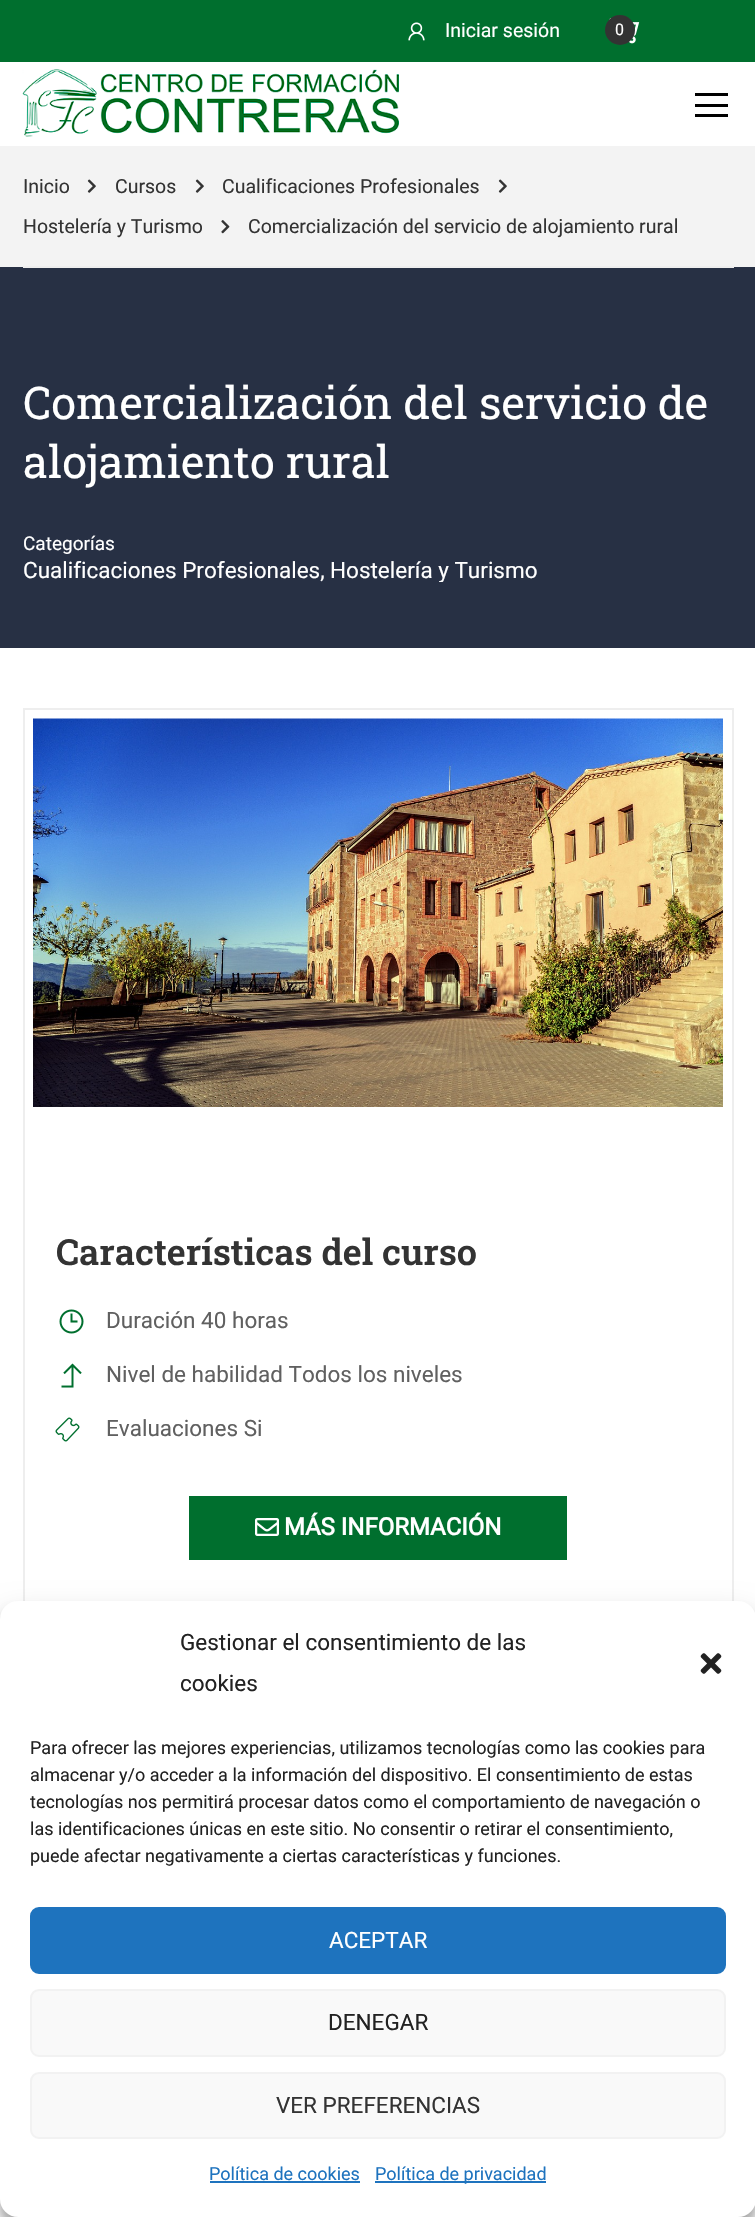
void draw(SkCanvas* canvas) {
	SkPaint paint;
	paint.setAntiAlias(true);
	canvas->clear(0xffffffff);
	paint.setColor(0xff006f2e);
	canvas->drawRect(SkRect::MakeXYWH(0, 0, 755, 62), paint);
	canvas->drawImageRect(SkImages::DeferredFromEncodedData(SkData::MakeFromFileName("img1.png")), SkRect::MakeXYWH(408, 22, 17, 19), SkSamplingOptions());
	SkFont f1(fontMgr->matchFamilyStyle("Roboto", SkFontStyle::Normal()), 19.5);
	f1.setSubpixel(true);
	paint.setColor(0xffffffff);
	canvas->drawString("Iniciar sesión", 445, 37, f1, paint);
	canvas->drawImageRect(SkImages::DeferredFromEncodedData(SkData::MakeFromFileName("img2.png")), SkRect::MakeXYWH(609, 18, 31, 26), SkSamplingOptions());
	paint.setColor(0xff333333);
	canvas->drawCircle(620, 30, 15, paint);
	SkFont f2(fontMgr->matchFamilyStyle("Roboto", SkFontStyle::Normal()), 16);
	f2.setSubpixel(true);
	paint.setColor(0xffffffff);
	canvas->drawString("0", 615, 35, f2, paint);
	canvas->drawImageRect(SkImages::DeferredFromEncodedData(SkData::MakeFromFileName("img3.png")), SkRect::MakeXYWH(22, 69, 377, 68), SkSamplingOptions());
	paint.setColor(0xff000000);
	canvas->drawRect(SkRect::MakeXYWH(695, 93, 33, 3), paint);
	canvas->drawRect(SkRect::MakeXYWH(695, 104, 33, 3), paint);
	canvas->drawRect(SkRect::MakeXYWH(695, 114, 33, 3), paint);
	paint.setColor(0xfff3f3f3);
	canvas->drawRect(SkRect::MakeXYWH(0, 146, 755, 121), paint);
	paint.setColor(0xff273044);
	canvas->drawRect(SkRect::MakeXYWH(0, 267, 755, 381), paint);
	paint.setColor(0xffeeeeee);
	canvas->drawRect(SkRect::MakeXYWH(23, 266, 711, 2), paint);
	paint.setColor(0xff333333);
	canvas->drawString("Inicio", 23, 193, f1, paint);
	canvas->drawImageRect(SkImages::DeferredFromEncodedData(SkData::MakeFromFileName("img4.png")), SkRect::MakeXYWH(87, 179, 9, 14), SkSamplingOptions());
	canvas->drawString("Cursos", 115, 193, f1, paint);
	canvas->drawImageRect(SkImages::DeferredFromEncodedData(SkData::MakeFromFileName("img4.png")), SkRect::MakeXYWH(195, 179, 9, 14), SkSamplingOptions());
	canvas->drawString("Cualificaciones Profesionales", 222, 193, f1, paint);
	canvas->drawImageRect(SkImages::DeferredFromEncodedData(SkData::MakeFromFileName("img4.png")), SkRect::MakeXYWH(498, 179, 9, 14), SkSamplingOptions());
	canvas->drawString("Hostelería y Turismo", 23, 233, f1, paint);
	canvas->drawImageRect(SkImages::DeferredFromEncodedData(SkData::MakeFromFileName("img5.png")), SkRect::MakeXYWH(221, 220, 9, 14), SkSamplingOptions());
	canvas->drawString("Comercialización del servicio de alojamiento rural", 248, 233, f1, paint);
	SkFont f3(fontMgr->matchFamilyStyle("Roboto Slab", SkFontStyle::Normal()), 45);
	f3.setSubpixel(true);
	paint.setColor(0xffffffff);
	canvas->drawString("Comercialización del servicio de", 23, 419, f3, paint);
	canvas->drawString("alojamiento rural", 23, 478, f3, paint);
	SkFont f4(fontMgr->matchFamilyStyle("Roboto", SkFontStyle::Normal()), 19);
	f4.setSubpixel(true);
	canvas->drawString("Categorías", 23, 550, f4, paint);
	SkFont f5(fontMgr->matchFamilyStyle("Roboto", SkFontStyle::Normal()), 22.5);
	f5.setSubpixel(true);
	canvas->drawString("Cualificaciones Profesionales,", 23, 578, f5, paint);
	canvas->save();
	canvas->clipRect(SkRect::MakeXYWH(23, 527, 514, 55));
	canvas->drawString("Hostelería y Turismo", 330, 578, f5, paint);
	canvas->restore();
	paint.setStroke(true);
	paint.setStrokeWidth(2);
	paint.setColor(0xffeeeeee);
	canvas->drawRect(SkRect::MakeXYWH(24, 709, 709, 991), paint);
	canvas->drawImageRect(SkImages::DeferredFromEncodedData(SkData::MakeFromFileName("img6.png")), SkRect::MakeXYWH(33, 718, 690, 389), SkSamplingOptions());
	SkFont f6(fontMgr->matchFamilyStyle("Roboto Slab", SkFontStyle(600, SkFontStyle::kNormal_Width, SkFontStyle::kUpright_Slant)), 36);
	f6.setSubpixel(true);
	paint.setStroke(false);
	paint.setColor(0xff333333);
	canvas->drawString("Características del curso", 56, 1265, f6, paint);
	canvas->drawImageRect(SkImages::DeferredFromEncodedData(SkData::MakeFromFileName("img7.png")), SkRect::MakeXYWH(59, 1309, 25, 25), SkSamplingOptions());
	paint.setColor(0xff606060);
	canvas->drawString("Duración 40 horas", 106, 1328, f5, paint);
	canvas->drawImageRect(SkImages::DeferredFromEncodedData(SkData::MakeFromFileName("img8.png")), SkRect::MakeXYWH(61, 1363, 21, 25), SkSamplingOptions());
	canvas->drawString("Nivel de habilidad Todos los niveles", 106, 1382, f5, paint);
	canvas->drawImageRect(SkImages::DeferredFromEncodedData(SkData::MakeFromFileName("img9.png")), SkRect::MakeXYWH(55, 1417, 25, 25), SkSamplingOptions());
	canvas->drawString("Evaluaciones Si", 106, 1436, f5, paint);
	paint.setColor(0xff006f2e);
	canvas->drawRect(SkRect::MakeXYWH(189, 1496, 378, 64), paint);
	canvas->drawImageRect(SkImages::DeferredFromEncodedData(SkData::MakeFromFileName("img10.png")), SkRect::MakeXYWH(255, 1518, 24, 18), SkSamplingOptions());
	SkFont f7(fontMgr->matchFamilyStyle("Roboto", SkFontStyle::Bold()), 24);
	f7.setSubpixel(true);
	paint.setColor(0xffffffff);
	canvas->drawString("MÁS INFORMACIÓN", 284, 1535, f7, paint);
	paint.setColor(0x3b000000);
	paint.setMaskFilter(SkMaskFilter::MakeBlur(kNormal_SkBlurStyle, 4.5));
	canvas->drawRoundRect(SkRect::MakeXYWH(0, 1610, 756, 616), 18, 18, paint);
	paint.setMaskFilter(nullptr);
	paint.setColor(0x30000000);
	paint.setMaskFilter(SkMaskFilter::MakeBlur(kNormal_SkBlurStyle, 15));
	canvas->drawRoundRect(SkRect::MakeXYWH(0, 1616, 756, 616), 18, 18, paint);
	paint.setMaskFilter(nullptr);
	paint.setColor(0xffffffff);
	canvas->drawRoundRect(SkRect::MakeXYWH(0, 1601, 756, 616), 18, 18, paint);
	paint.setColor(0xff222222);
	canvas->drawString("Gestionar el consentimiento de las", 180, 1650, f5, paint);
	canvas->drawString("cookies", 180, 1691, f5, paint);
	canvas->drawImageRect(SkImages::DeferredFromEncodedData(SkData::MakeFromFileName("img11.png")), SkRect::MakeXYWH(700, 1653, 22, 21), SkSamplingOptions());
	SkFont f8(fontMgr->matchFamilyStyle("Roboto", SkFontStyle::Normal()), 18);
	f8.setSubpixel(true);
	canvas->drawString("Para ofrecer las mejores experiencias, utilizamos tecnologías como las cookies para", 30, 1754, f8, paint);
	canvas->drawString("almacenar y/o acceder a la información del dispositivo. El consentimiento de estas", 30, 1781, f8, paint);
	canvas->drawString("tecnologías nos permitirá procesar datos como el comportamiento de navegación o", 30, 1808, f8, paint);
	canvas->drawString("las identificaciones únicas en este sitio. No consentir o retirar el consentimiento,", 30, 1835, f8, paint);
	canvas->drawString("puede afectar negativamente a ciertas características y funciones.", 30, 1862, f8, paint);
	paint.setColor(0xff1e73be);
	canvas->drawRoundRect(SkRect::MakeXYWH(31, 1908, 694, 65), 8, 8, paint);
	paint.setStroke(true);
	canvas->drawRoundRect(SkRect::MakeXYWH(31, 1908, 694, 65), 8, 8, paint);
	paint.setStroke(false);
	paint.setColor(0xffffffff);
	canvas->drawString("ACEPTAR", 329, 1948, f5, paint);
	paint.setColor(0xfff9f9f9);
	canvas->drawRoundRect(SkRect::MakeXYWH(31, 1990, 694, 66), 8, 8, paint);
	paint.setStroke(true);
	paint.setColor(0xfff2f2f2);
	canvas->drawRoundRect(SkRect::MakeXYWH(31, 1990, 694, 66), 8, 8, paint);
	paint.setStroke(false);
	paint.setColor(0xff222222);
	canvas->drawString("DENEGAR", 328, 2030, f5, paint);
	paint.setColor(0xfff9f9f9);
	canvas->drawRoundRect(SkRect::MakeXYWH(31, 2073, 694, 65), 8, 8, paint);
	paint.setStroke(true);
	paint.setColor(0xfff2f2f2);
	canvas->drawRoundRect(SkRect::MakeXYWH(31, 2073, 694, 65), 8, 8, paint);
	paint.setStroke(false);
	paint.setColor(0xff333333);
	canvas->drawString("VER PREFERENCIAS", 276, 2113, f5, paint);
	paint.setColor(0xff1e73be);
	canvas->drawString("Política de cookies", 209, 2180, f8, paint);
	canvas->drawRect(SkRect::MakeXYWH(210, 2181, 150, 2), paint);
	canvas->drawRect(SkRect::MakeXYWH(375, 2181, 171, 2), paint);
	canvas->drawString("Política de privacidad", 375, 2180, f8, paint);
}
